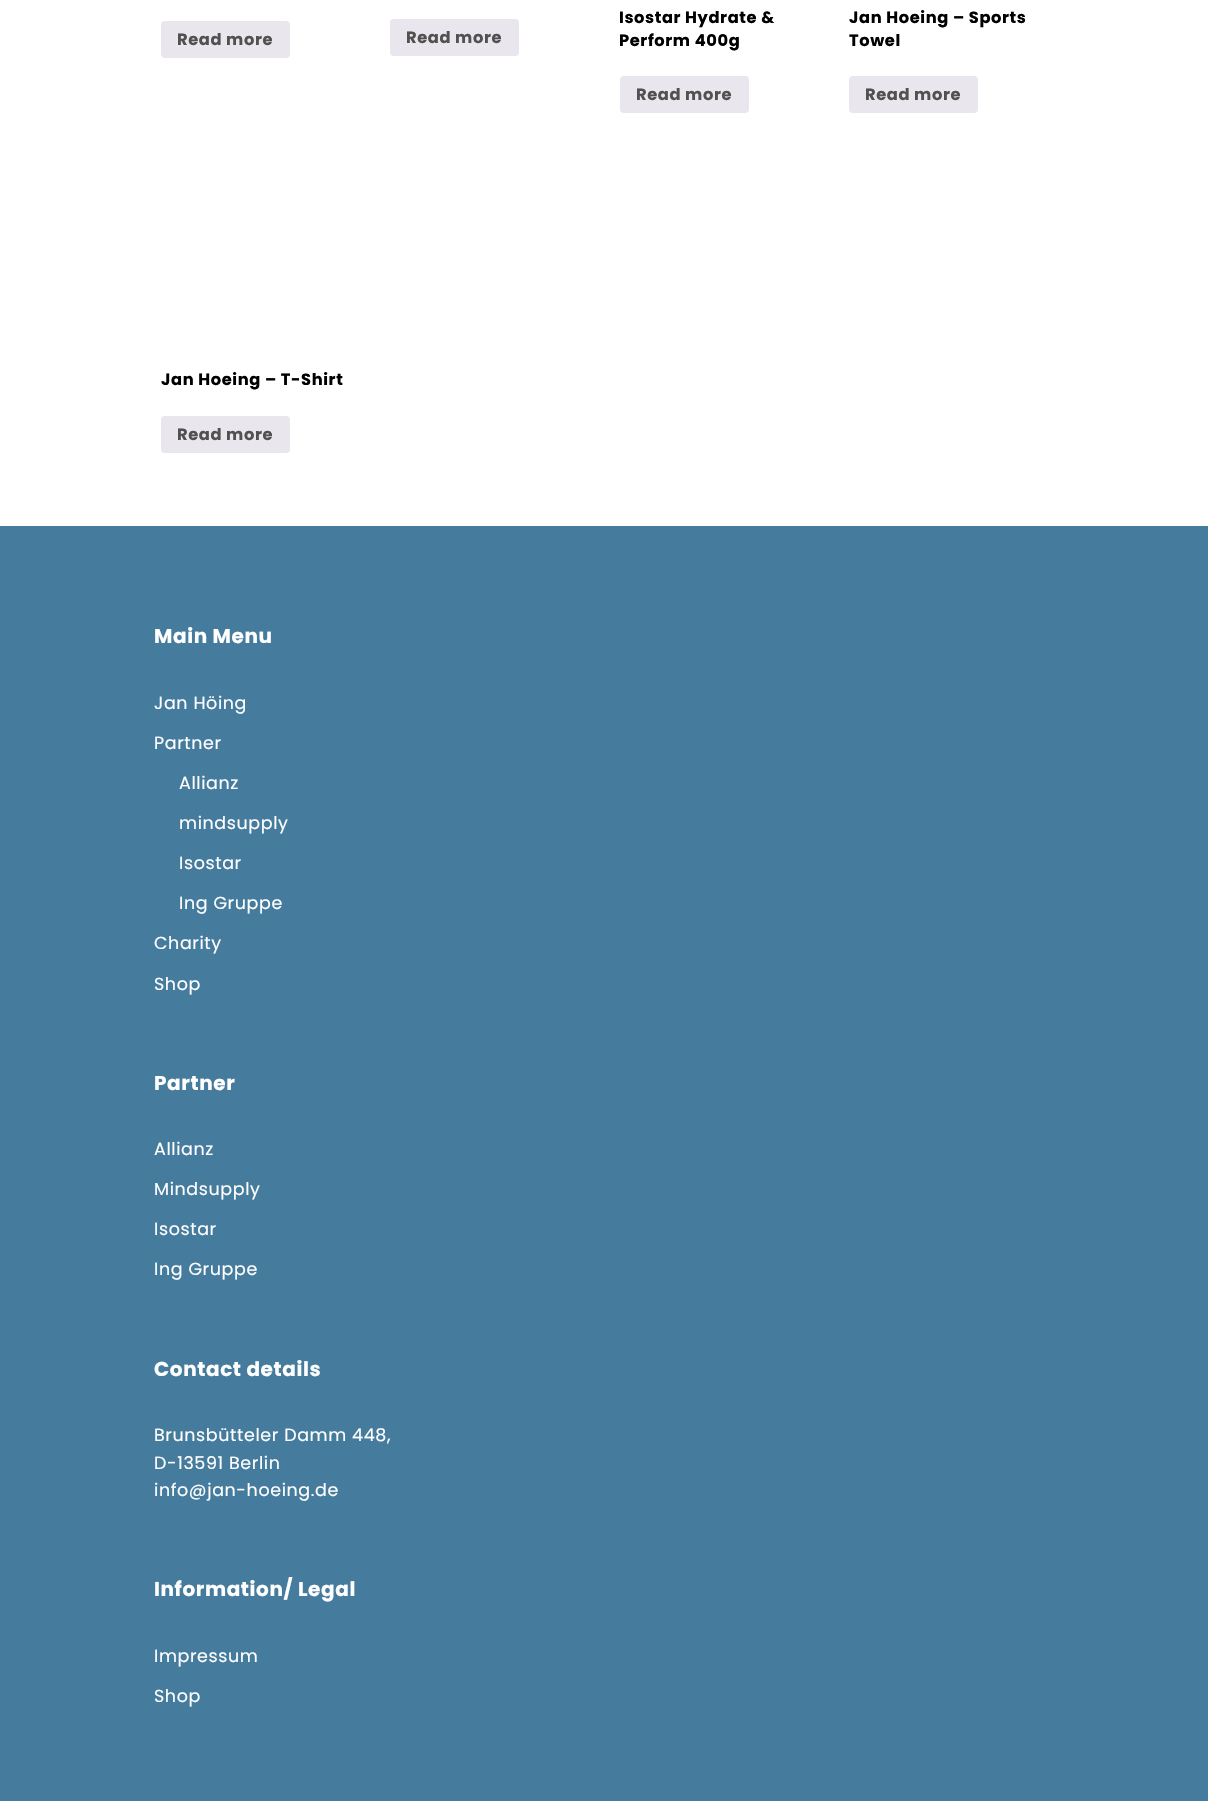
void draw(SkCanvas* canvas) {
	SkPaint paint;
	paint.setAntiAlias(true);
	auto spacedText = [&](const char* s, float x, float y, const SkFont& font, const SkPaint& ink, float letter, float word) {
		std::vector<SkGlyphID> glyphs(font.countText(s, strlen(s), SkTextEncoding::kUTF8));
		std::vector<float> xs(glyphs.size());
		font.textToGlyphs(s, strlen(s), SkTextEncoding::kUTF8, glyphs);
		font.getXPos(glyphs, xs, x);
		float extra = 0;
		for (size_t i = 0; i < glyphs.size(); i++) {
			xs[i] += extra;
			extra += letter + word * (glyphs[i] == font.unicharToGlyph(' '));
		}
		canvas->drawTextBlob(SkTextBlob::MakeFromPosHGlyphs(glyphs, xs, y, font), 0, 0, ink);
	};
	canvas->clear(0xffffffff);
	paint.setColor(0xffe9e6ed);
	canvas->drawRoundRect(SkRect::MakeXYWH(161, 21, 129, 37), 4, 4, paint);
	SkFont f1(fontMgr->matchFamilyStyle("Poppins", SkFontStyle::Bold()), 16.25);
	f1.setSubpixel(true);
	paint.setColor(0xff515151);
	spacedText("Read more", 177, 45, f1, paint, 0.6, 0);
	paint.setColor(0xffe9e6ed);
	canvas->drawRoundRect(SkRect::MakeXYWH(390, 19, 129, 37), 4, 4, paint);
	paint.setColor(0xff515151);
	spacedText("Read more", 406, 43, f1, paint, 0.6, 0);
	paint.setColor(0xff000000);
	spacedText("Isostar Hydrate &", 619, 23, f1, paint, 0.6, 0);
	spacedText("Perform 400g", 619, 46, f1, paint, 0.6, 0);
	paint.setColor(0xffe9e6ed);
	canvas->drawRoundRect(SkRect::MakeXYWH(620, 76, 129, 37), 4, 4, paint);
	paint.setColor(0xff515151);
	spacedText("Read more", 636, 100, f1, paint, 0.6, 0);
	paint.setColor(0xff000000);
	spacedText("Jan Hoeing – Sports", 849, 23, f1, paint, 0.6, 0);
	spacedText("Towel", 849, 46, f1, paint, 0.6, 0);
	paint.setColor(0xffe9e6ed);
	canvas->drawRoundRect(SkRect::MakeXYWH(849, 76, 129, 37), 4, 4, paint);
	paint.setColor(0xff515151);
	spacedText("Read more", 865, 100, f1, paint, 0.6, 0);
	paint.setColor(0xff000000);
	spacedText("Jan Hoeing – T-Shirt", 161, 385, f1, paint, 0.6, 0);
	paint.setColor(0xffe9e6ed);
	canvas->drawRoundRect(SkRect::MakeXYWH(161, 416, 129, 37), 4, 4, paint);
	paint.setColor(0xff515151);
	spacedText("Read more", 177, 440, f1, paint, 0.6, 0);
	paint.setColor(0xff457b9d);
	canvas->drawRect(SkRect::MakeXYWH(0, 526, 1208, 1275), paint);
	SkFont f2(fontMgr->matchFamilyStyle("Poppins", SkFontStyle::Bold()), 20);
	f2.setSubpixel(true);
	paint.setColor(0xffffffff);
	spacedText("Main Menu", 154, 643, f2, paint, 0.6, 0);
	SkFont f3(fontMgr->matchFamilyStyle("Poppins", SkFontStyle::Normal()), 17.5);
	f3.setSubpixel(true);
	spacedText("Jan Höing", 154, 709, f3, paint, 0.6, 0);
	spacedText("Partner", 154, 749, f3, paint, 0.6, 0);
	spacedText("Allianz", 179, 789, f3, paint, 0.6, 0);
	spacedText("mindsupply", 179, 829, f3, paint, 0.6, 0);
	spacedText("Isostar", 179, 869, f3, paint, 0.6, 0);
	spacedText("Ing Gruppe", 179, 909, f3, paint, 0.6, 0);
	spacedText("Charity", 154, 949, f3, paint, 0.6, 0);
	spacedText("Shop", 154, 990, f3, paint, 0.6, 0);
	spacedText("Partner", 154, 1090, f2, paint, 0.6, 0);
	spacedText("Allianz", 154, 1155, f3, paint, 0.6, 0);
	spacedText("Mindsupply", 154, 1195, f3, paint, 0.6, 0);
	spacedText("Isostar", 154, 1235, f3, paint, 0.6, 0);
	spacedText("Ing Gruppe", 154, 1275, f3, paint, 0.6, 0);
	spacedText("Contact details", 154, 1376, f2, paint, 0.6, 0);
	spacedText("Brunsbütteler Damm 448,", 154, 1441, f3, paint, 0.6, 0);
	spacedText("D-13591 Berlin", 154, 1469, f3, paint, 0.6, 0);
	spacedText("info@jan-hoeing.de", 154, 1496, f3, paint, 0.6, 0);
	spacedText("Information/ Legal", 154, 1596, f2, paint, 0.6, 0);
	spacedText("Impressum", 154, 1662, f3, paint, 0.6, 0);
	spacedText("Shop", 154, 1702, f3, paint, 0.6, 0);
}
